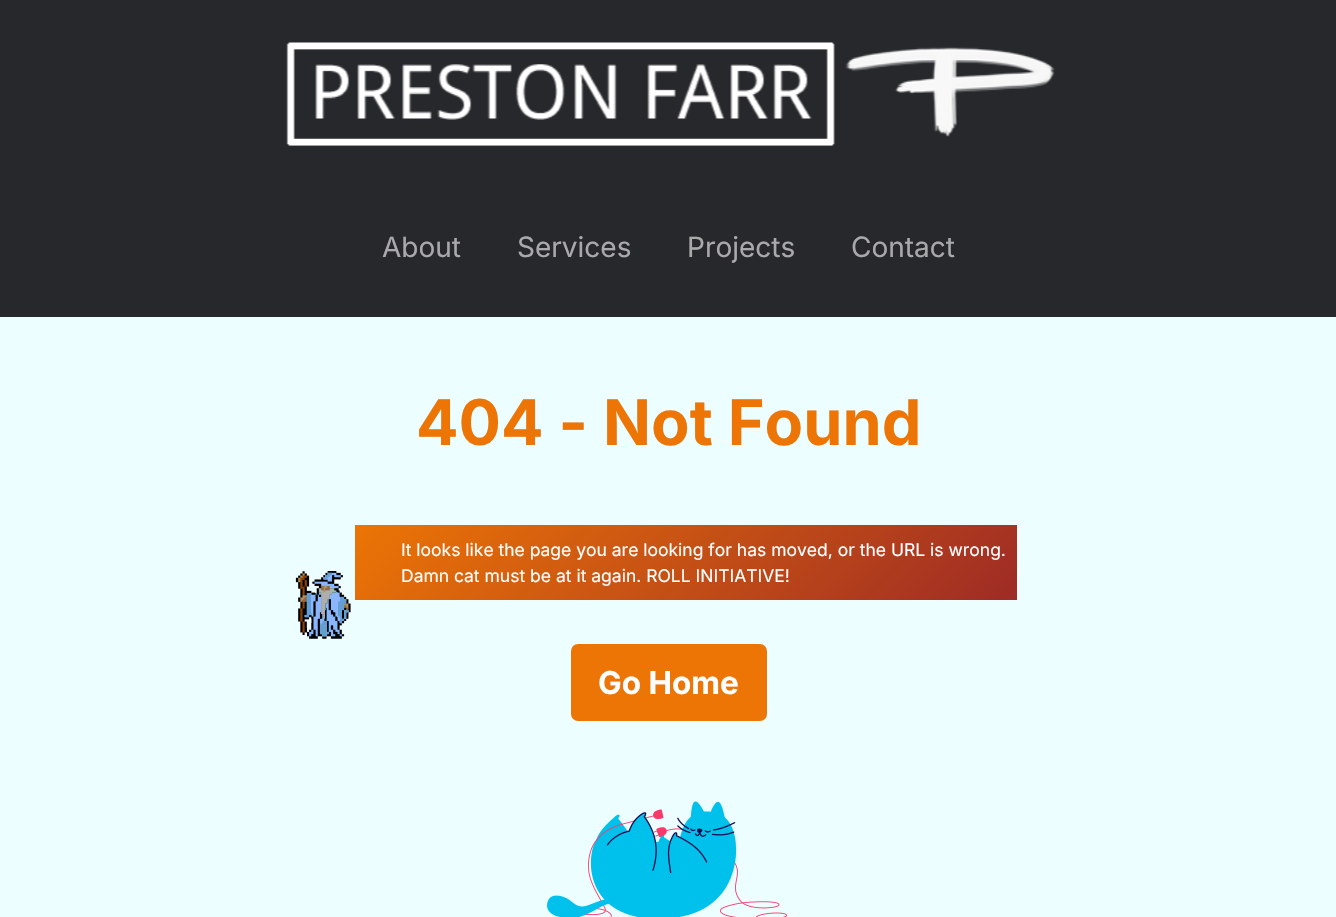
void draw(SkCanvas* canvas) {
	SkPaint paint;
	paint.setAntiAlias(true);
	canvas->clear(0xff27282c);
	canvas->drawImageRect(SkImages::DeferredFromEncodedData(SkData::MakeFromFileName("img1.png")), SkRect::MakeXYWH(286, 42, 769, 104), SkSamplingOptions());
	SkFont f1(fontMgr->matchFamilyStyle("Inter", SkFontStyle::Normal()), 28);
	f1.setSubpixel(true);
	paint.setColor(0xffa9a9ab);
	canvas->drawString("About", 382, 257, f1, paint);
	canvas->drawString("Services", 517, 257, f1, paint);
	canvas->drawString("Projects", 687, 257, f1, paint);
	canvas->drawString("Contact", 851, 257, f1, paint);
	paint.setColor(0xffecfeff);
	canvas->drawRect(SkRect::MakeXYWH(0, 317, 1336, 600), paint);
	SkFont f2(fontMgr->matchFamilyStyle("Inter", SkFontStyle::Bold()), 63);
	f2.setSubpixel(true);
	paint.setColor(0xffec7505);
	canvas->drawString("404 - Not Found", 416, 445, f2, paint);
	{
		const SkColor colors[] = {0xffec7505, 0xff9e2b25};
		const float stops[] = {0, 1};
		const SkPoint ends[] = {{502, 378}, {870, 747}};
		paint.setShader(SkGradientShader::MakeLinear(ends, colors, stops, 2, SkTileMode::kClamp));
		paint.setAlpha(255);
	}
	canvas->drawRect(SkRect::MakeXYWH(355, 525, 662, 75), paint);
	SkFont f3(fontMgr->matchFamilyStyle("Inter", SkFontStyle::Normal()), 17.5);
	f3.setSubpixel(true);
	paint.setShader(nullptr);
	paint.setColor(0xffffffff);
	canvas->drawString("It looks like the page you are looking for has moved, or the URL is wrong.", 401, 556, f3, paint);
	canvas->drawString("Damn cat must be at it again. ROLL INITIATIVE!", 401, 582, f3, paint);
	canvas->drawImageRect(SkImages::DeferredFromEncodedData(SkData::MakeFromFileName("img2.png")), SkRect::MakeXYWH(295, 571, 56, 68), SkSamplingOptions());
	paint.setColor(0xffec7505);
	canvas->drawRoundRect(SkRect::MakeXYWH(571, 644, 196, 77), 7, 7, paint);
	SkFont f4(fontMgr->matchFamilyStyle("Inter", SkFontStyle::Bold()), 31.5);
	f4.setSubpixel(true);
	paint.setColor(0xffffffff);
	canvas->drawString("Go Home", 598, 694, f4, paint);
	canvas->drawImageRect(SkImages::DeferredFromEncodedData(SkData::MakeFromFileName("img3.png")), SkRect::MakeXYWH(547, 801, 241, 116), SkSamplingOptions());
}
